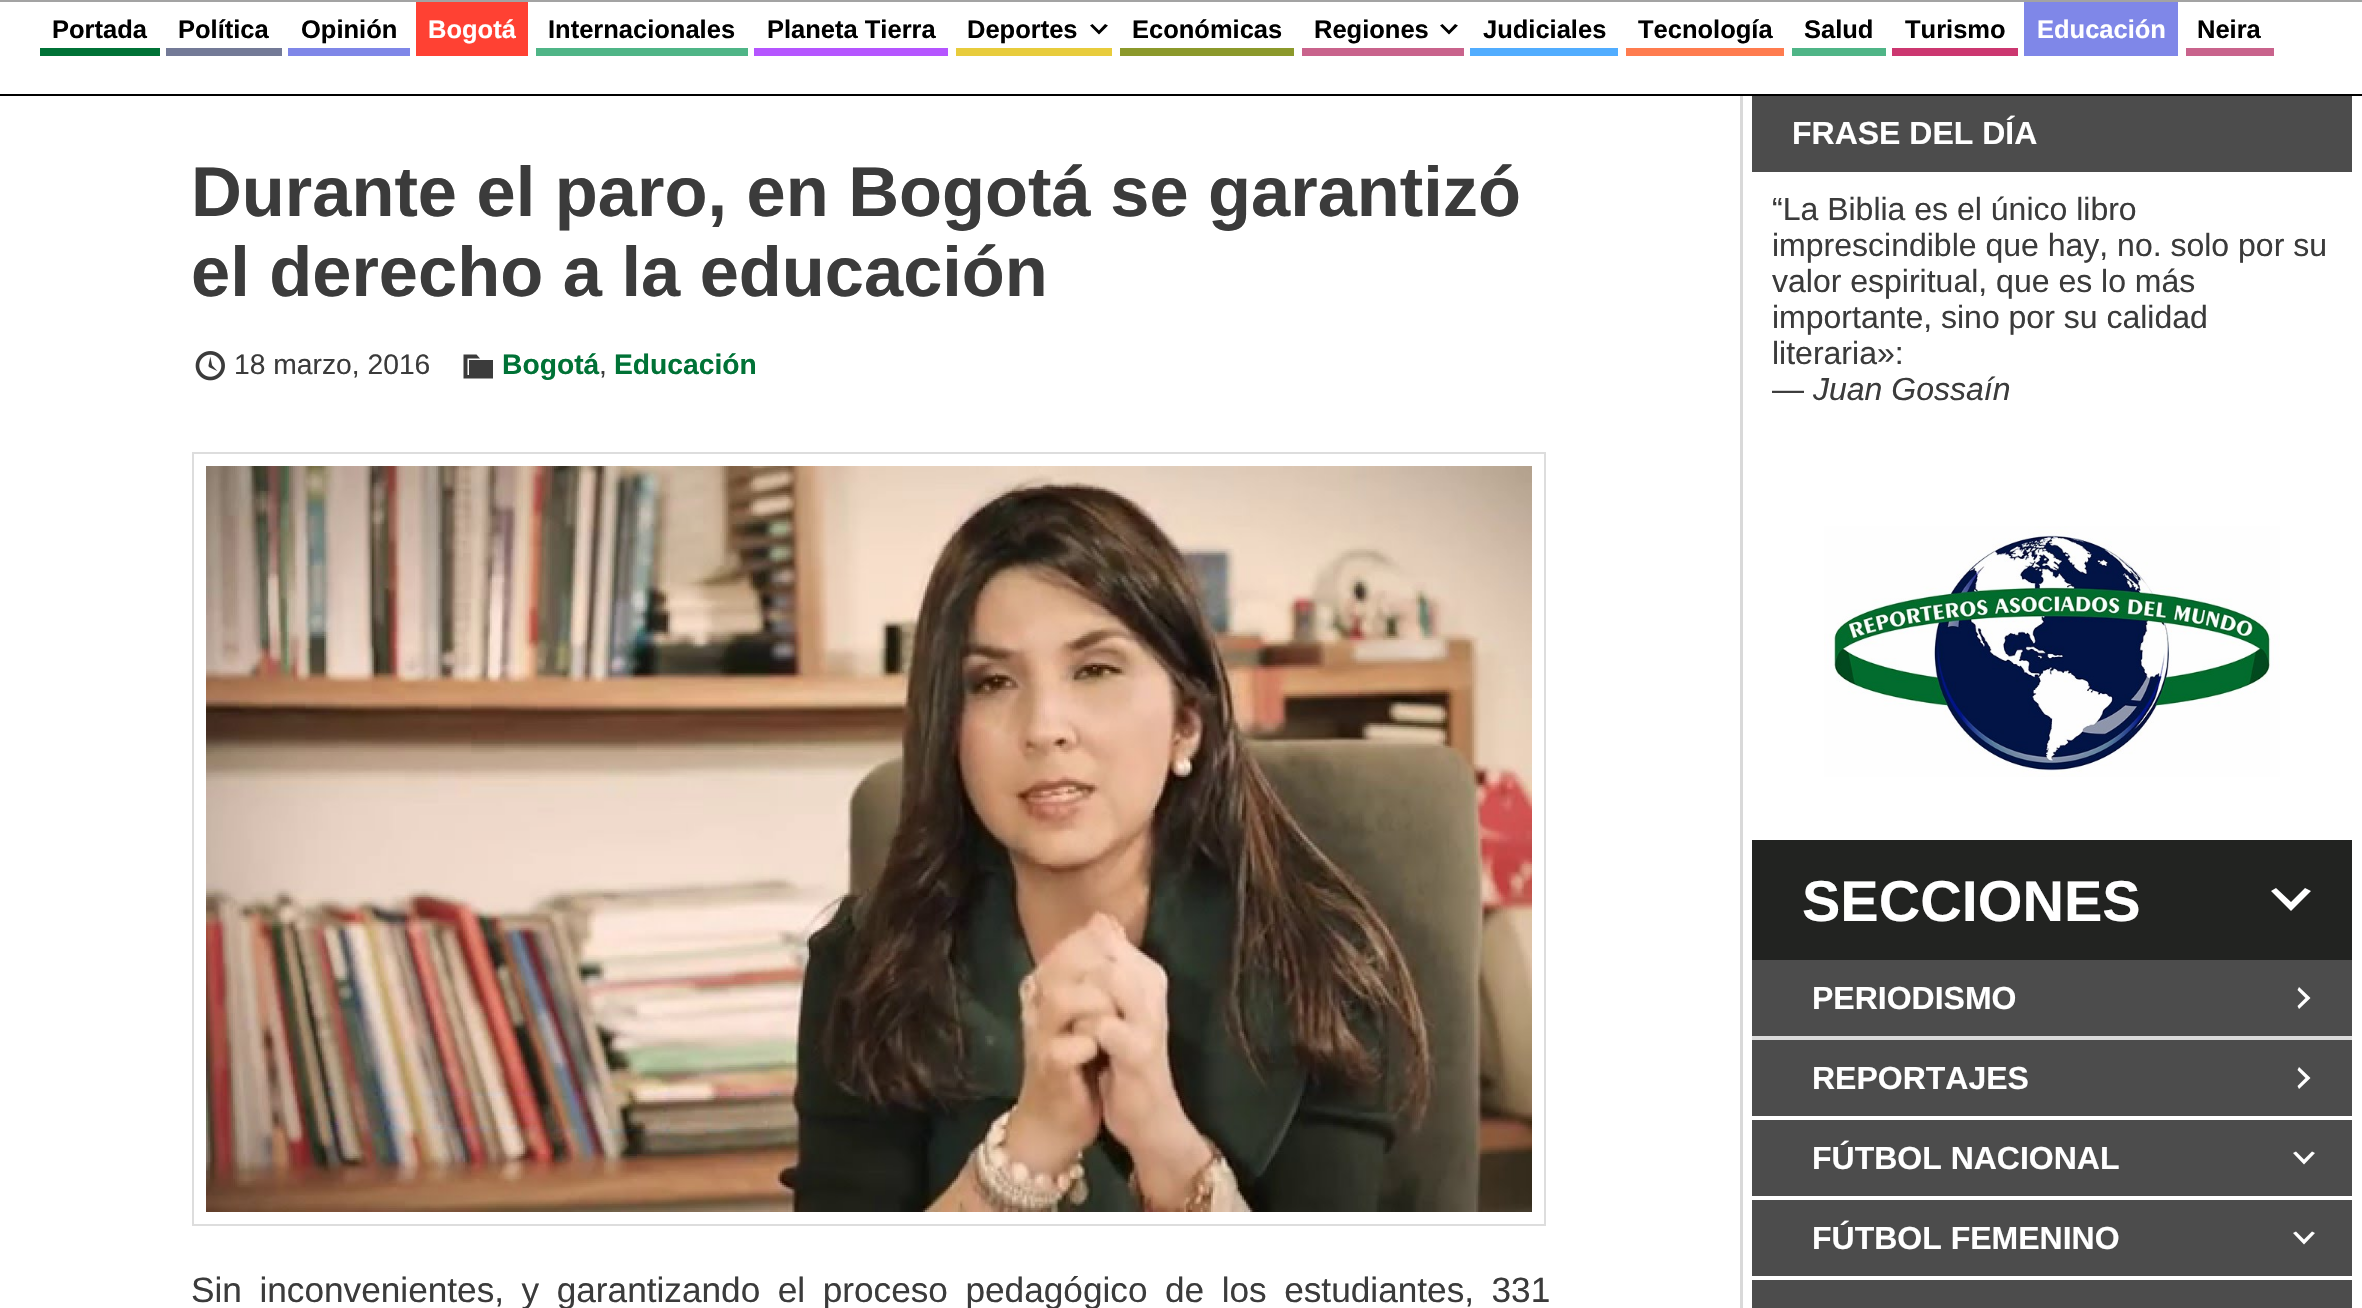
void draw(SkCanvas* canvas) {
	SkPaint paint;
	paint.setAntiAlias(true);
	auto spacedText = [&](const char* s, float x, float y, const SkFont& font, const SkPaint& ink, float letter, float word) {
		std::vector<SkGlyphID> glyphs(font.countText(s, strlen(s), SkTextEncoding::kUTF8));
		std::vector<float> xs(glyphs.size());
		font.textToGlyphs(s, strlen(s), SkTextEncoding::kUTF8, glyphs);
		font.getXPos(glyphs, xs, x);
		float extra = 0;
		for (size_t i = 0; i < glyphs.size(); i++) {
			xs[i] += extra;
			extra += letter + word * (glyphs[i] == font.unicharToGlyph(' '));
		}
		canvas->drawTextBlob(SkTextBlob::MakeFromPosHGlyphs(glyphs, xs, y, font), 0, 0, ink);
	};
	auto svgPath = [&](const char* data, bool evenOdd = false) {
		SkPath result = *SkParsePath::FromSVGString(data);
		if (evenOdd) result.setFillType(SkPathFillType::kEvenOdd);
		return result;
	};
	canvas->clear(0xffffffff);
	paint.setColor(0xffa3a3a3);
	canvas->drawRect(SkRect::MakeXYWH(0, 0, 2362, 2), paint);
	paint.setColor(0xff000000);
	canvas->drawRect(SkRect::MakeXYWH(0, 94, 2362, 2), paint);
	paint.setColor(0xff007236);
	canvas->drawRect(SkRect::MakeXYWH(40, 48, 120, 8), paint);
	SkFont f1(fontMgr->matchFamilyStyle("Liberation Sans", SkFontStyle::Bold()), 25.5);
	f1.setSubpixel(true);
	paint.setColor(0xff000000);
	canvas->drawString("Portada", 52, 38, f1, paint);
	paint.setColor(0xff737a97);
	canvas->drawRect(SkRect::MakeXYWH(166, 48, 116, 8), paint);
	paint.setColor(0xff000000);
	canvas->drawString("Política", 178, 38, f1, paint);
	paint.setColor(0xff7f87e8);
	canvas->drawRect(SkRect::MakeXYWH(288, 48, 122, 8), paint);
	paint.setColor(0xff000000);
	canvas->drawString("Opinión", 301, 38, f1, paint);
	paint.setColor(0xffff4133);
	canvas->drawRect(SkRect::MakeXYWH(416, 2, 112, 54), paint);
	paint.setColor(0xffffffff);
	canvas->drawString("Bogotá", 428, 38, f1, paint);
	paint.setColor(0xff4fb587);
	canvas->drawRect(SkRect::MakeXYWH(536, 48, 212, 8), paint);
	paint.setColor(0xff000000);
	canvas->drawString("Internacionales", 548, 38, f1, paint);
	paint.setColor(0xffb555ff);
	canvas->drawRect(SkRect::MakeXYWH(754, 48, 194, 8), paint);
	paint.setColor(0xff000000);
	canvas->drawString("Planeta Tierra", 767, 38, f1, paint);
	paint.setColor(0xffe8cc3c);
	canvas->drawRect(SkRect::MakeXYWH(956, 48, 156, 8), paint);
	paint.setColor(0xff000000);
	canvas->drawString("Deportes", 967, 38, f1, paint);
	canvas->drawPath(svgPath("M1092.5 24L1099 30.5L1105 24L1108 25.5L1099 34.5L1090 25.5Z"), paint);
	paint.setColor(0xff8c992b);
	canvas->drawRect(SkRect::MakeXYWH(1120, 48, 174, 8), paint);
	paint.setColor(0xff000000);
	canvas->drawString("Económicas", 1132, 38, f1, paint);
	paint.setColor(0xffc9638c);
	canvas->drawRect(SkRect::MakeXYWH(1302, 48, 162, 8), paint);
	paint.setColor(0xff000000);
	canvas->drawString("Regiones", 1314, 38, f1, paint);
	canvas->drawPath(svgPath("M1442.5 24L1449 30.5L1455 24L1458 25.5L1449 34.5L1440 25.5Z"), paint);
	paint.setColor(0xff51adff);
	canvas->drawRect(SkRect::MakeXYWH(1470, 48, 148, 8), paint);
	paint.setColor(0xff000000);
	canvas->drawString("Judiciales", 1483, 38, f1, paint);
	paint.setColor(0xffff7c4f);
	canvas->drawRect(SkRect::MakeXYWH(1626, 48, 158, 8), paint);
	paint.setColor(0xff000000);
	canvas->drawString("Tecnología", 1638, 38, f1, paint);
	paint.setColor(0xff4fb587);
	canvas->drawRect(SkRect::MakeXYWH(1792, 48, 94, 8), paint);
	paint.setColor(0xff000000);
	canvas->drawString("Salud", 1804, 38, f1, paint);
	paint.setColor(0xffcc3770);
	canvas->drawRect(SkRect::MakeXYWH(1892, 48, 126, 8), paint);
	paint.setColor(0xff000000);
	canvas->drawString("Turismo", 1905, 38, f1, paint);
	paint.setColor(0xff7f87e8);
	canvas->drawRect(SkRect::MakeXYWH(2024, 2, 154, 54), paint);
	paint.setColor(0xffffffff);
	canvas->drawString("Educación", 2037, 38, f1, paint);
	paint.setColor(0xffc9638c);
	canvas->drawRect(SkRect::MakeXYWH(2186, 48, 88, 8), paint);
	paint.setColor(0xff000000);
	canvas->drawString("Neira", 2197, 38, f1, paint);
	paint.setColor(0xffd9d9d9);
	canvas->drawRect(SkRect::MakeXYWH(1740, 96, 3, 1212), paint);
	SkFont f2(fontMgr->matchFamilyStyle("Liberation Sans", SkFontStyle::Bold()), 70.4);
	f2.setSubpixel(true);
	paint.setColor(0xff3b3b3b);
	canvas->drawString("Durante el paro, en Bogotá se garantizó", 191, 216, f2, paint);
	canvas->drawString("el derecho a la educación", 191, 296, f2, paint);
	canvas->drawImageRect(SkImages::DeferredFromEncodedData(SkData::MakeFromFileName("img1.png")), SkRect::MakeXYWH(195, 351, 30, 30), SkSamplingOptions());
	SkFont f3(fontMgr->matchFamilyStyle("Liberation Sans", SkFontStyle::Normal()), 28.25);
	f3.setSubpixel(true);
	canvas->drawString("18 marzo, 2016", 234, 374, f3, paint);
	SkFont f4(fontMgr->matchFamilyStyle("Liberation Sans", SkFontStyle::Bold()), 28.25);
	f4.setSubpixel(true);
	paint.setColor(0xff007236);
	canvas->drawString("Bogotá", 502, 374, f4, paint);
	paint.setColor(0xff3b3b3b);
	canvas->drawPath(svgPath("M469 360H493V378.5H463.5V354.5H476.5L480 358.5H467.5V375H469Z"), paint);
	canvas->drawString(",", 599, 374, f3, paint);
	paint.setColor(0xff007236);
	canvas->drawString("Educación", 614, 374, f4, paint);
	paint.setStroke(true);
	paint.setStrokeWidth(2);
	paint.setColor(0xffdddddd);
	canvas->drawRect(SkRect::MakeXYWH(193, 453, 1352, 772), paint);
	canvas->drawImageRect(SkImages::DeferredFromEncodedData(SkData::MakeFromFileName("img2.png")), SkRect::MakeXYWH(206, 466, 1326, 746), SkSamplingOptions());
	SkFont f5(fontMgr->matchFamilyStyle("Liberation Sans", SkFontStyle::Normal()), 35.2);
	f5.setSubpixel(true);
	paint.setStroke(false);
	paint.setColor(0xff3b3b3b);
	spacedText("Sin inconvenientes, y garantizando el proceso pedagógico de los estudiantes, 331", 191, 1302, f5, paint, 0, 7.75);
	paint.setColor(0xff4c4c4c);
	canvas->drawRect(SkRect::MakeXYWH(1752, 96, 600, 76), paint);
	SkFont f6(fontMgr->matchFamilyStyle("Liberation Sans", SkFontStyle::Bold()), 32);
	f6.setSubpixel(true);
	paint.setColor(0xffffffff);
	canvas->drawString("FRASE DEL DÍA", 1792, 144, f6, paint);
	SkFont f7(fontMgr->matchFamilyStyle("Liberation Sans", SkFontStyle::Normal()), 32);
	f7.setSubpixel(true);
	paint.setColor(0xff3b3b3b);
	canvas->drawString("“La Biblia es el único libro", 1772, 220, f7, paint);
	canvas->drawString("imprescindible que hay, no. solo por su", 1772, 256, f7, paint);
	canvas->drawString("valor espiritual, que es lo más", 1772, 292, f7, paint);
	canvas->drawString("importante, sino por su calidad", 1772, 328, f7, paint);
	canvas->drawString("literaria»:", 1772, 364, f7, paint);
	canvas->drawString("—", 1772, 400, f7, paint);
	SkFont f8(fontMgr->matchFamilyStyle("Liberation Sans", SkFontStyle::Italic()), 32);
	f8.setSubpixel(true);
	canvas->drawString("Juan Gossaín", 1813, 400, f8, paint);
	canvas->drawImageRect(SkImages::DeferredFromEncodedData(SkData::MakeFromFileName("img3.png")), SkRect::MakeXYWH(1824, 526, 456, 251), SkSamplingOptions());
	paint.setColor(0xffdadada);
	canvas->drawRect(SkRect::MakeXYWH(1752, 1036, 600, 4), paint);
	paint.setColor(0xff222321);
	canvas->drawRect(SkRect::MakeXYWH(1752, 840, 600, 120), paint);
	SkFont f9(fontMgr->matchFamilyStyle("Liberation Sans", SkFontStyle::Bold()), 57.5);
	f9.setSubpixel(true);
	paint.setColor(0xffffffff);
	canvas->drawString("SECCIONES", 1802, 921, f9, paint);
	canvas->drawPath(svgPath("M2276 888L2291 902L2305 888L2311 891L2291 911L2271 891Z"), paint);
	paint.setColor(0xff4c4c4c);
	canvas->drawRect(SkRect::MakeXYWH(1752, 960, 600, 76), paint);
	paint.setColor(0xffffffff);
	canvas->drawString("PERIODISMO", 1812, 1009, f6, paint);
	canvas->drawPath(svgPath("M2297.5 1006L2305.5 998L2297.5 990L2299 987L2310.5 998L2299 1009Z"), paint);
	paint.setColor(0xff4c4c4c);
	canvas->drawRect(SkRect::MakeXYWH(1752, 1040, 600, 76), paint);
	paint.setColor(0xffffffff);
	canvas->drawString("REPORTAJES", 1812, 1089, f6, paint);
	canvas->drawPath(svgPath("M2297.5 1086L2305.5 1078L2297.5 1070L2299 1067L2310.5 1078L2299 1089Z"), paint);
	paint.setColor(0xff4c4c4c);
	canvas->drawRect(SkRect::MakeXYWH(1752, 1120, 600, 76), paint);
	paint.setColor(0xffffffff);
	canvas->drawString("FÚTBOL NACIONAL", 1812, 1169, f6, paint);
	canvas->drawPath(svgPath("M2296 1151.5L2304 1159.5L2312 1151.5L2315 1153L2304 1164.5L2293 1153Z"), paint);
	paint.setColor(0xff4c4c4c);
	canvas->drawRect(SkRect::MakeXYWH(1752, 1200, 600, 76), paint);
	paint.setColor(0xffffffff);
	canvas->drawString("FÚTBOL FEMENINO", 1812, 1249, f6, paint);
	canvas->drawPath(svgPath("M2296 1231.5L2304 1239.5L2312 1231.5L2315 1233L2304 1244.5L2293 1233Z"), paint);
	paint.setColor(0xff4c4c4c);
	canvas->drawRect(SkRect::MakeXYWH(1752, 1280, 600, 28), paint);
}
